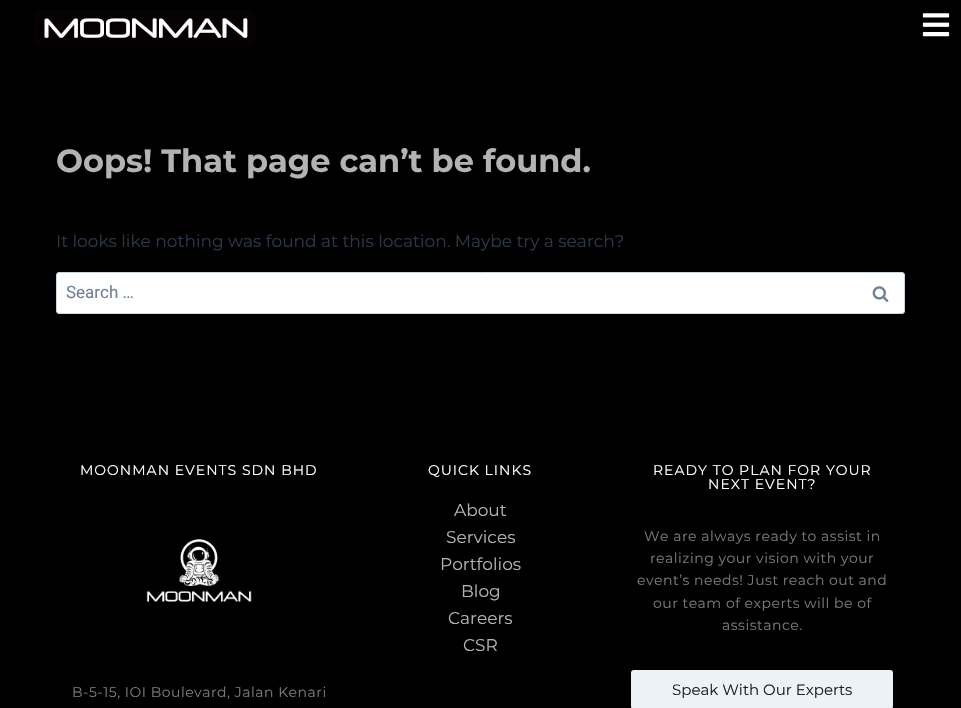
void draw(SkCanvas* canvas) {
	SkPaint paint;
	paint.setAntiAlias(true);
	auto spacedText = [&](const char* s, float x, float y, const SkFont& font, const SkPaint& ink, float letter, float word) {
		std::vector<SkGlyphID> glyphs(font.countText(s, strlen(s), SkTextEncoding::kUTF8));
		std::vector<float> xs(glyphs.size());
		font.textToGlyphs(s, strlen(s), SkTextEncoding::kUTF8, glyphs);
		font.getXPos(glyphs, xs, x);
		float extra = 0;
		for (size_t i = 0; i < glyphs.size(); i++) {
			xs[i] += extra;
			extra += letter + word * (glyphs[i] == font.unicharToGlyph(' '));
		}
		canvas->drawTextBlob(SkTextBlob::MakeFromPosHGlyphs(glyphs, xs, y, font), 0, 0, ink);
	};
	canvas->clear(0xff000000);
	canvas->drawImageRect(SkImages::DeferredFromEncodedData(SkData::MakeFromFileName("img1.png")), SkRect::MakeXYWH(33, 10, 223, 37), SkSamplingOptions());
	canvas->drawImageRect(SkImages::DeferredFromEncodedData(SkData::MakeFromFileName("img2.png")), SkRect::MakeXYWH(922, 13, 28, 24), SkSamplingOptions());
	SkFont f1(fontMgr->matchFamilyStyle("Montserrat", SkFontStyle::Bold()), 32);
	f1.setSubpixel(true);
	paint.setColor(0xffb3b3b3);
	canvas->drawString("Oops! That page can’t be found.", 56, 172, f1, paint);
	SkFont f2(fontMgr->matchFamilyStyle("Montserrat", SkFontStyle::Normal()), 17);
	f2.setSubpixel(true);
	paint.setColor(0xff2d3748);
	canvas->drawString("It looks like nothing was found at this location. Maybe try a search?", 56, 247, f2, paint);
	paint.setColor(0xffffffff);
	canvas->drawRoundRect(SkRect::MakeXYWH(56.5, 272.5, 848, 41), 2.5, 2.5, paint);
	paint.setStroke(true);
	paint.setStrokeWidth(1);
	paint.setColor(0xffcbd5e0);
	canvas->drawRoundRect(SkRect::MakeXYWH(56.5, 272.5, 848, 41), 2.5, 2.5, paint);
	SkFont f3(fontMgr->matchFamilyStyle("Roboto", SkFontStyle::Normal()), 17);
	f3.setSubpixel(true);
	paint.setStroke(false);
	paint.setColor(0xff718096);
	canvas->drawString("Search …", 66, 298, f3, paint);
	canvas->drawImageRect(SkImages::DeferredFromEncodedData(SkData::MakeFromFileName("img3.png")), SkRect::MakeXYWH(872, 286, 17, 16), SkSamplingOptions());
	SkFont f4(fontMgr->matchFamilyStyle("Montserrat", SkFontStyle::Normal()), 14);
	f4.setSubpixel(true);
	paint.setColor(0xffffffff);
	spacedText("MOONMAN EVENTS SDN BHD", 80, 475, f4, paint, 1, 0);
	canvas->drawImageRect(SkImages::DeferredFromEncodedData(SkData::MakeFromFileName("img4.png")), SkRect::MakeXYWH(146, 539, 106, 63), SkSamplingOptions());
	paint.setColor(0xff7a7a7a);
	spacedText("B-5-15, IOI Boulevard, Jalan Kenari", 72, 697, f4, paint, 0.5, 0);
	paint.setColor(0xffffffff);
	spacedText("QUICK LINKS", 428, 475, f4, paint, 1, 0);
	paint.setColor(0xffb3b3b3);
	canvas->drawString("About", 454, 516, f2, paint);
	canvas->drawString("Services", 446, 543, f2, paint);
	canvas->drawString("Portfolios", 440, 570, f2, paint);
	canvas->drawString("Blog", 461, 597, f2, paint);
	canvas->drawString("Careers", 448, 624, f2, paint);
	canvas->drawString("CSR", 463, 651, f2, paint);
	paint.setColor(0xffffffff);
	spacedText("READY TO PLAN FOR YOUR", 653, 475, f4, paint, 1, 0);
	spacedText("NEXT EVENT?", 708, 489, f4, paint, 1, 0);
	paint.setColor(0xff7a7a7a);
	spacedText("We are always ready to assist in", 644, 541, f4, paint, 0.5, 0);
	spacedText("realizing your vision with your", 650, 563, f4, paint, 0.5, 0);
	spacedText("event’s needs! Just reach out and", 637, 585, f4, paint, 0.5, 0);
	spacedText("our team of experts will be of", 653, 608, f4, paint, 0.5, 0);
	spacedText("assistance.", 722, 630, f4, paint, 0.5, 0);
	paint.setColor(0xffedf2f7);
	canvas->drawRoundRect(SkRect::MakeXYWH(631, 670, 262, 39), 3, 3, paint);
	SkFont f5(fontMgr->matchFamilyStyle("Montserrat", SkFontStyle::Normal()), 15);
	f5.setSubpixel(true);
	paint.setColor(0xff1a202c);
	canvas->drawString("Speak With Our Experts", 672, 695, f5, paint);
}
